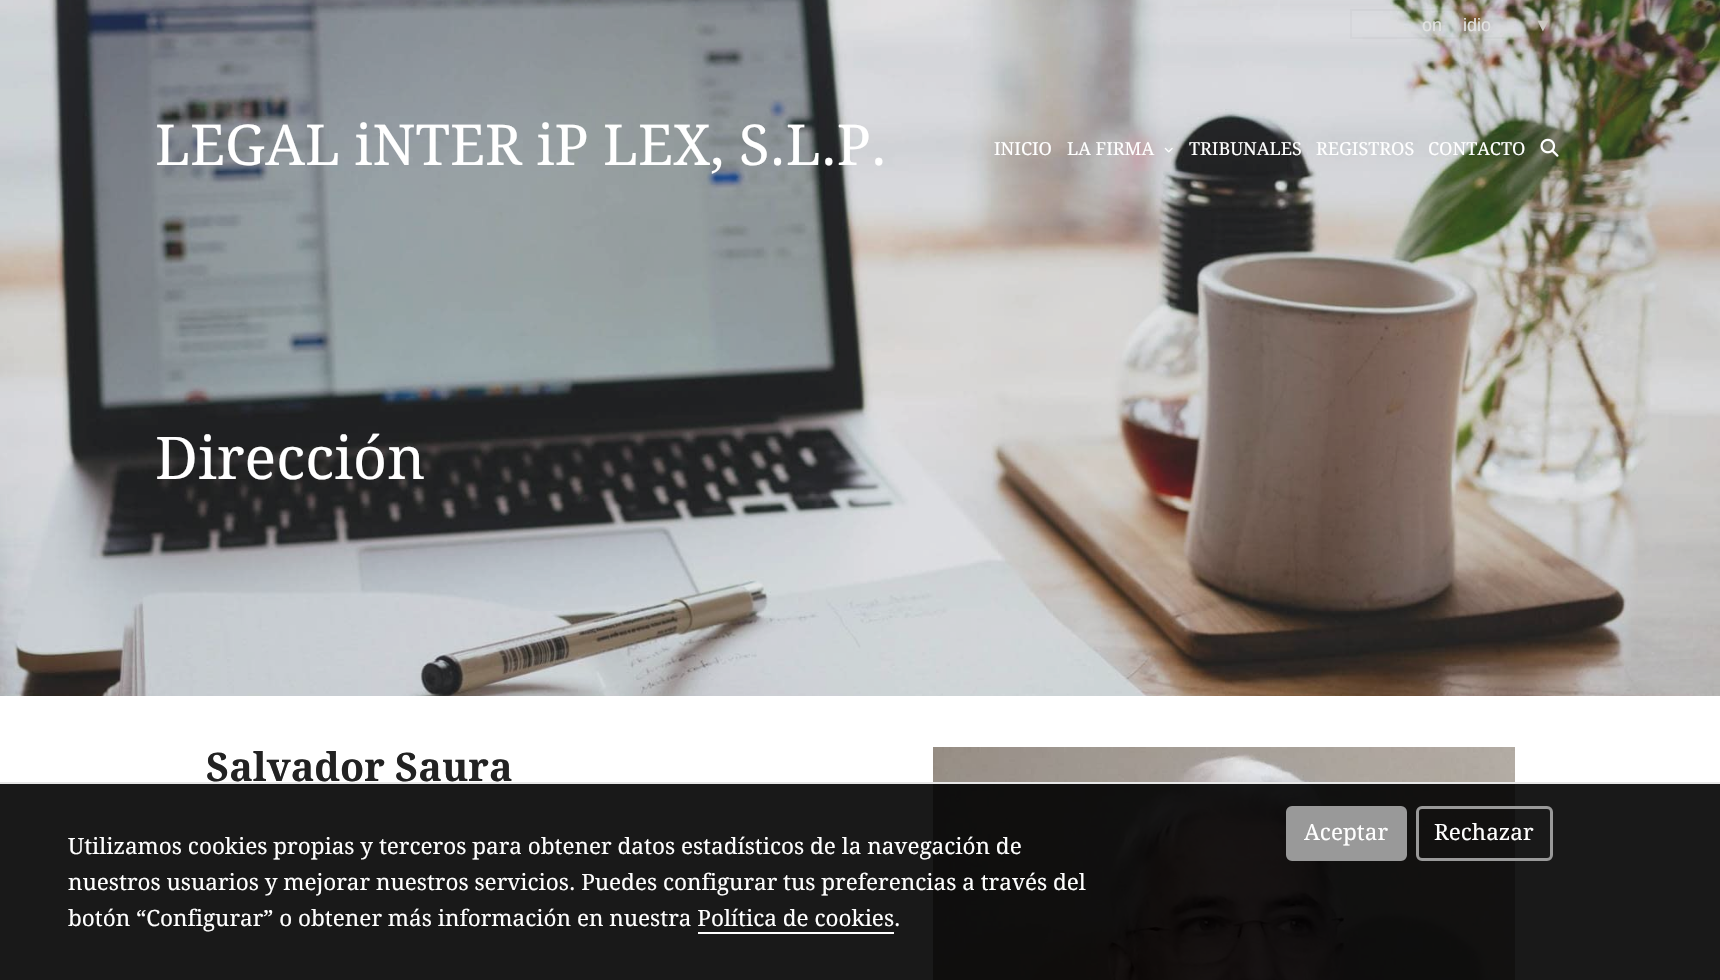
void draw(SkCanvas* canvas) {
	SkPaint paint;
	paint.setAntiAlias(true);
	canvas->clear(0xffffffff);
	canvas->drawImageRect(SkImages::DeferredFromEncodedData(SkData::MakeFromFileName("img3.png")), SkRect::MakeXYWH(0, 0, 1720, 696), SkSamplingOptions());
	paint.setStroke(true);
	paint.setStrokeWidth(2);
	paint.setColor(0x08222222);
	canvas->drawRect(SkRect::MakeXYWH(1351, 10, 214, 28), paint);
	SkFont f1(fontMgr->matchFamilyStyle("Liberation Sans", SkFontStyle::Normal()), 18);
	f1.setSubpixel(true);
	paint.setStroke(false);
	paint.setColor(0xffe3e3e1);
	canvas->drawString("on", 1422, 31, f1, paint);
	canvas->drawString("idio", 1463, 31, f1, paint);
	paint.setColor(0xffcac6c0);
	canvas->drawString("▼", 1534, 31, f1, paint);
	SkFont f2(fontMgr->matchFamilyStyle("Droid Serif", SkFontStyle::Normal()), 56.25);
	f2.setSubpixel(true);
	paint.setColor(0xffffffff);
	canvas->drawString("LEGAL iNTER iP LEX, S.L.P.", 155, 165, f2, paint);
	SkFont f3(fontMgr->matchFamilyStyle("Droid Serif", SkFontStyle::Normal()), 18);
	f3.setSubpixel(true);
	canvas->drawString("INICIO", 994, 155, f3, paint);
	canvas->drawString("LA FIRMA", 1067, 155, f3, paint);
	canvas->drawImageRect(SkImages::DeferredFromEncodedData(SkData::MakeFromFileName("img1.png")), SkRect::MakeXYWH(1164, 147, 9, 6), SkSamplingOptions());
	canvas->drawString("TRIBUNALES", 1189, 155, f3, paint);
	canvas->drawString("REGISTROS", 1316, 155, f3, paint);
	canvas->drawString("CONTACTO", 1428, 155, f3, paint);
	canvas->drawImageRect(SkImages::DeferredFromEncodedData(SkData::MakeFromFileName("img2.png")), SkRect::MakeXYWH(1540, 138, 19, 19), SkSamplingOptions());
	SkFont f4(fontMgr->matchFamilyStyle("Droid Serif", SkFontStyle::Normal()), 59);
	f4.setSubpixel(true);
	canvas->drawString("Dirección", 155, 479, f4, paint);
	SkFont f5(fontMgr->matchFamilyStyle("Droid Serif", SkFontStyle::Bold()), 39.5);
	f5.setSubpixel(true);
	paint.setColor(0xff222222);
	canvas->drawString("Salvador Saura", 206, 781, f5, paint);
	canvas->drawImageRect(SkImages::DeferredFromEncodedData(SkData::MakeFromFileName("img4.png")), SkRect::MakeXYWH(933, 747, 582, 233), SkSamplingOptions());
	paint.setColor(0xe6000000);
	canvas->drawRect(SkRect::MakeXYWH(0, 784, 1720, 196), paint);
	paint.setColor(0xffe7e7e7);
	canvas->drawRect(SkRect::MakeXYWH(0, 782, 1720, 2), paint);
	SkFont f6(fontMgr->matchFamilyStyle("Droid Serif", SkFontStyle::Normal()), 22.5);
	f6.setSubpixel(true);
	paint.setColor(0xffffffff);
	canvas->drawString("Utilizamos cookies propias y terceros para obtener datos estadísticos de la navegación de", 68, 854, f6, paint);
	canvas->drawString("nuestros usuarios y mejorar nuestros servicios. Puedes configurar tus preferencias a través del", 68, 890, f6, paint);
	canvas->drawString("botón “Configurar” o obtener más información en nuestra Política de cookies.", 68, 926, f6, paint);
	canvas->drawRect(SkRect::MakeXYWH(698, 932, 196, 2), paint);
	paint.setColor(0xff999999);
	canvas->drawRoundRect(SkRect::MakeXYWH(1287.5, 807.5, 118, 52), 4.5, 4.5, paint);
	paint.setStroke(true);
	paint.setStrokeWidth(3);
	canvas->drawRoundRect(SkRect::MakeXYWH(1287.5, 807.5, 118, 52), 4.5, 4.5, paint);
	paint.setStroke(false);
	paint.setColor(0xffffffff);
	canvas->drawString("Aceptar", 1304, 840, f6, paint);
	paint.setStroke(true);
	paint.setColor(0xff999999);
	canvas->drawRoundRect(SkRect::MakeXYWH(1417.5, 807.5, 134, 52), 4.5, 4.5, paint);
	paint.setStroke(false);
	paint.setColor(0xffffffff);
	canvas->drawString("Rechazar", 1434, 840, f6, paint);
}
